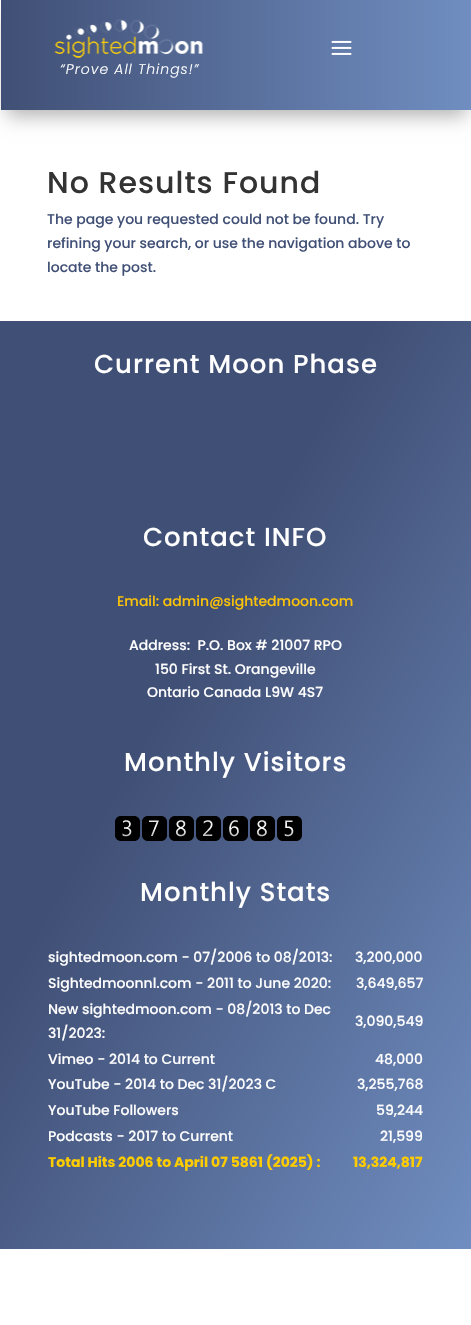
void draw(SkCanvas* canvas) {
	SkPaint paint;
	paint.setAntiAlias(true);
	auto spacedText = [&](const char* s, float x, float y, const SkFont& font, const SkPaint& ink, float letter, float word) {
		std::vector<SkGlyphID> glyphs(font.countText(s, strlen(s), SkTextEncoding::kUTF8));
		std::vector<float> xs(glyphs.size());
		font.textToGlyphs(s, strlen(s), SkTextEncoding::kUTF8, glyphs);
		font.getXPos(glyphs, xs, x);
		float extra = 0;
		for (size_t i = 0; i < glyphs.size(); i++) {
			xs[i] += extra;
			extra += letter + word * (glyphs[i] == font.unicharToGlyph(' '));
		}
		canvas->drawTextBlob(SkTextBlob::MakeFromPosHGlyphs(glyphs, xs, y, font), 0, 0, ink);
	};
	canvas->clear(0xffffffff);
	paint.setColor(0x4d000000);
	paint.setMaskFilter(SkMaskFilter::MakeBlur(kNormal_SkBlurStyle, 9));
	canvas->drawRect(SkRect::MakeXYWH(7, 18, 459, 98), paint);
	paint.setMaskFilter(nullptr);
	{
		const SkColor colors[] = {0xff404f75, 0xff708ec1};
		const float stops[] = {0, 1};
		const SkPoint ends[] = {{0.5, 55}, {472, 55}};
		paint.setShader(SkGradientShader::MakeLinear(ends, colors, stops, 2, SkTileMode::kClamp));
		paint.setAlpha(255);
	}
	canvas->drawRect(SkRect::MakeXYWH(1, 0, 470, 110), paint);
	canvas->drawImageRect(SkImages::DeferredFromEncodedData(SkData::MakeFromFileName("img1.png")), SkRect::MakeXYWH(331, 40, 21, 15), SkSamplingOptions());
	canvas->drawImageRect(SkImages::DeferredFromEncodedData(SkData::MakeFromFileName("img2.png")), SkRect::MakeXYWH(54, 19, 149, 39), SkSamplingOptions());
	SkFont f1(fontMgr->matchFamilyStyle("Poppins", SkFontStyle(300, SkFontStyle::kNormal_Width, SkFontStyle::kItalic_Slant)), 14);
	f1.setSubpixel(true);
	paint.setShader(nullptr);
	paint.setColor(0xffffffff);
	spacedText("“Prove All Things!”", 60, 74, f1, paint, 1, 0);
	SkFont f2(fontMgr->matchFamilyStyle("Poppins", SkFontStyle(500, SkFontStyle::kNormal_Width, SkFontStyle::kUpright_Slant)), 30);
	f2.setSubpixel(true);
	paint.setColor(0xff333333);
	spacedText("No Results Found", 47, 193, f2, paint, 1, 0);
	SkFont f3(fontMgr->matchFamilyStyle("Poppins", SkFontStyle(500, SkFontStyle::kNormal_Width, SkFontStyle::kUpright_Slant)), 14);
	f3.setSubpixel(true);
	paint.setColor(0xff404f75);
	canvas->drawString("The page you requested could not be found. Try", 47, 224, f3, paint);
	canvas->drawString("refining your search, or use the navigation above to", 47, 248, f3, paint);
	canvas->drawString("locate the post.", 47, 272, f3, paint);
	{
		const SkColor colors[] = {0xff404f75, 0xff708ec1};
		const float stops[] = {0.38, 1};
		const SkPoint ends[] = {{-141, 576}, {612, 994}};
		paint.setShader(SkGradientShader::MakeLinear(ends, colors, stops, 2, SkTileMode::kClamp));
		paint.setAlpha(255);
	}
	canvas->drawRect(SkRect::MakeXYWH(0, 321, 471, 928), paint);
	SkFont f4(fontMgr->matchFamilyStyle("Poppins", SkFontStyle(500, SkFontStyle::kNormal_Width, SkFontStyle::kUpright_Slant)), 26);
	f4.setSubpixel(true);
	paint.setShader(nullptr);
	paint.setColor(0xffffffff);
	spacedText("Current Moon Phase", 94, 373, f4, paint, 1, 0);
	spacedText("Contact INFO", 143, 546, f4, paint, 1, 0);
	paint.setColor(0xfffcc308);
	canvas->drawString("Email: admin@sightedmoon.com", 117, 606, f3, paint);
	paint.setColor(0xffffffff);
	canvas->drawString("Address:  P.O. Box # 21007 RPO", 129, 650, f3, paint);
	canvas->drawString("150 First St. Orangeville", 155, 674, f3, paint);
	canvas->drawString("Ontario Canada L9W 4S7", 147, 697, f3, paint);
	spacedText("Monthly Visitors", 124, 771, f4, paint, 1, 0);
	canvas->drawImageRect(SkImages::DeferredFromEncodedData(SkData::MakeFromFileName("img3.png")), SkRect::MakeXYWH(115, 816, 187, 25), SkSamplingOptions());
	spacedText("Monthly Stats", 140, 901, f4, paint, 1, 0);
	canvas->drawString("sightedmoon.com - 07/2006 to 08/2013:", 48, 962, f3, paint);
	canvas->drawString("3,200,000", 355, 962, f3, paint);
	canvas->drawString("Sightedmoonnl.com - 2011 to June 2020:", 48, 988, f3, paint);
	canvas->drawString("3,649,657", 356, 988, f3, paint);
	canvas->drawString("New sightedmoon.com - 08/2013 to Dec", 48, 1014, f3, paint);
	canvas->drawString("31/2023:", 48, 1038, f3, paint);
	canvas->drawString("3,090,549", 355, 1026, f3, paint);
	canvas->drawString("Vimeo - 2014 to Current", 48, 1064, f3, paint);
	canvas->drawString("48,000", 375, 1064, f3, paint);
	canvas->drawString("YouTube - 2014 to Dec 31/2023 C", 48, 1089, f3, paint);
	canvas->drawString("3,255,768", 357, 1089, f3, paint);
	canvas->drawString("YouTube Followers", 48, 1115, f3, paint);
	canvas->drawString("59,244", 376, 1115, f3, paint);
	canvas->drawString("Podcasts - 2017 to Current", 48, 1141, f3, paint);
	canvas->drawString("21,599", 380, 1141, f3, paint);
	SkFont f5(fontMgr->matchFamilyStyle("Poppins", SkFontStyle::Bold()), 14);
	f5.setSubpixel(true);
	paint.setColor(0xffffcc00);
	canvas->drawString("Total Hits 2006 to April 07 5861 (2025) :", 48, 1167, f5, paint);
	canvas->drawString("13,324,817", 353, 1167, f5, paint);
}
